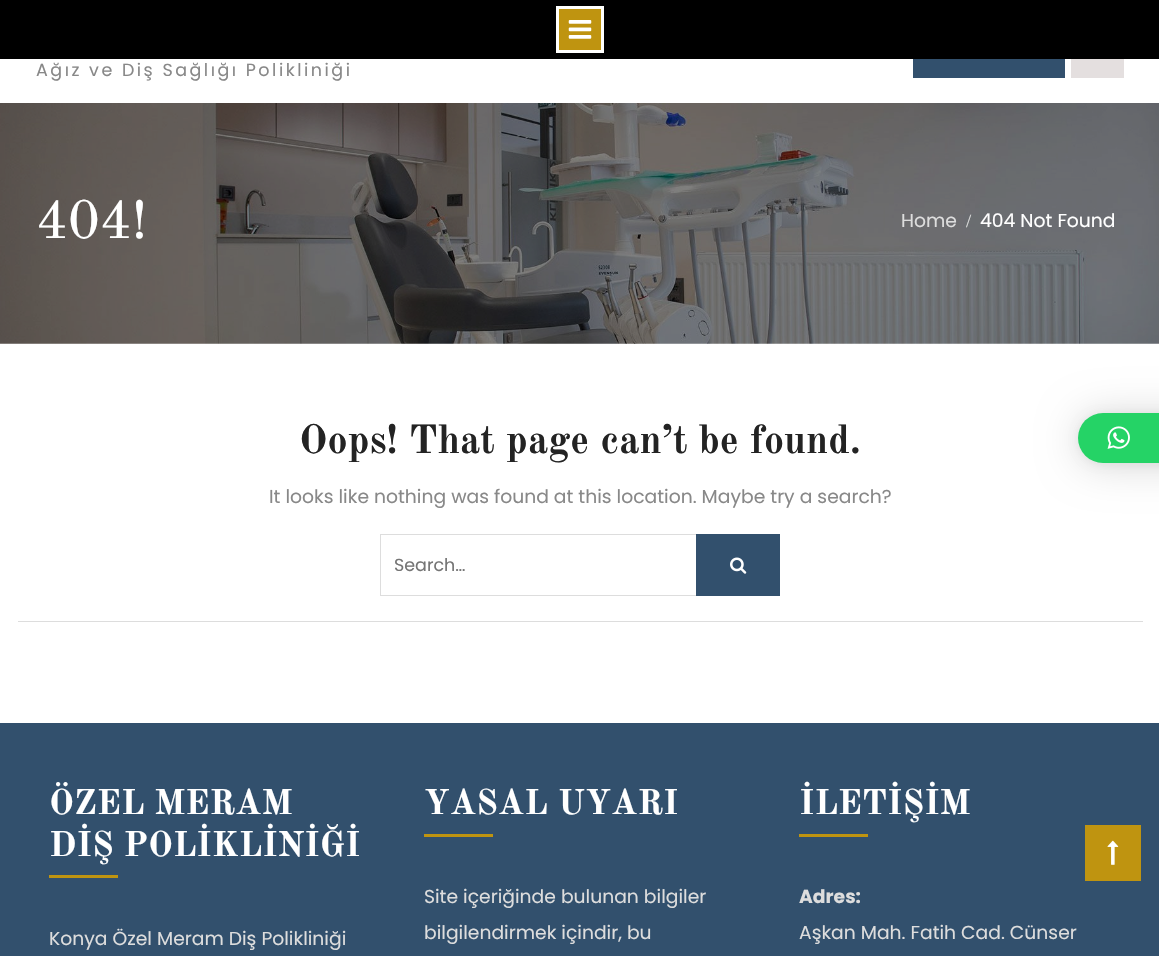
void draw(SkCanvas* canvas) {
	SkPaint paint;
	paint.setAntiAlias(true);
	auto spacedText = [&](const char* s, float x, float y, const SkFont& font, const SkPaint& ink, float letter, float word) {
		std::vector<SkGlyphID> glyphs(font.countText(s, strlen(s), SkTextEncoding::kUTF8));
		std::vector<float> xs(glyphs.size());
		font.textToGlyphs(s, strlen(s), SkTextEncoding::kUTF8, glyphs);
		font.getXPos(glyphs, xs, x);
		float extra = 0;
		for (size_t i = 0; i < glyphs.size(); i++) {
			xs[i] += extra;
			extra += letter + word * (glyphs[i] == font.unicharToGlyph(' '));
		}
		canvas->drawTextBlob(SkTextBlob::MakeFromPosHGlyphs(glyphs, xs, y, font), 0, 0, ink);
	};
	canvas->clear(0xffffffff);
	paint.setColor(0xff000000);
	canvas->drawRect(SkRect::MakeXYWH(0, 0, 1159, 59), paint);
	paint.setColor(0xffbf9410);
	canvas->drawRect(SkRect::MakeXYWH(557.5, 7.5, 45, 44), paint);
	paint.setStroke(true);
	paint.setStrokeWidth(3);
	paint.setColor(0xfffffffe);
	canvas->drawRect(SkRect::MakeXYWH(557.5, 7.5, 45, 44), paint);
	canvas->drawImageRect(SkImages::DeferredFromEncodedData(SkData::MakeFromFileName("img1.png")), SkRect::MakeXYWH(568, 20, 24, 19), SkSamplingOptions());
	SkFont f1(fontMgr->matchFamilyStyle("Poppins", SkFontStyle::Normal()), 17.5);
	f1.setSubpixel(true);
	paint.setStroke(false);
	paint.setColor(0xff888888);
	spacedText("Ağız ve Diş Sağlığı Polikliniği", 36, 76, f1, paint, 2.5, 0);
	paint.setColor(0xff32506d);
	canvas->drawRect(SkRect::MakeXYWH(913, 59, 152, 19), paint);
	paint.setColor(0xffe4dfdf);
	canvas->drawRect(SkRect::MakeXYWH(1071, 59, 53, 19), paint);
	canvas->drawImageRect(SkImages::DeferredFromEncodedData(SkData::MakeFromFileName("img2.png")), SkRect::MakeXYWH(0, 103, 1159, 241), SkSamplingOptions());
	SkFont f2(fontMgr->matchFamilyStyle("Old Standard TT", SkFontStyle::Normal()), 55);
	f2.setSubpixel(true);
	paint.setColor(0xffffffff);
	canvas->drawString("404!", 36, 238, f2, paint);
	SkFont f3(fontMgr->matchFamilyStyle("Poppins", SkFontStyle::Normal()), 18.75);
	f3.setSubpixel(true);
	paint.setColor(0xffdddddd);
	canvas->drawString("Home", 901, 227, f3, paint);
	SkFont f4(fontMgr->matchFamilyStyle("Liberation Serif", SkFontStyle::Normal()), 18.75);
	f4.setSubpixel(true);
	canvas->drawString("/", 966, 227, f4, paint);
	paint.setColor(0xffffffff);
	canvas->drawString("404 Not Found", 980, 227, f3, paint);
	paint.setColor(0xffdddddd);
	canvas->drawRect(SkRect::MakeXYWH(18, 621, 1125, 1), paint);
	SkFont f5(fontMgr->matchFamilyStyle("Old Standard TT", SkFontStyle::Bold()), 40);
	f5.setSubpixel(true);
	paint.setColor(0xff232323);
	canvas->drawString("Oops! That page can’t be found.", 299, 453, f5, paint);
	paint.setColor(0xff888888);
	canvas->drawString("It looks like nothing was found at this location. Maybe try a search?", 269, 503, f3, paint);
	paint.setStroke(true);
	paint.setStrokeWidth(1);
	paint.setColor(0xffdddddd);
	canvas->drawRect(SkRect::MakeXYWH(380.5, 534.5, 399, 61), paint);
	paint.setStroke(false);
	paint.setColor(0xff757575);
	canvas->drawString("Search…", 394, 571, f1, paint);
	paint.setColor(0xff32506d);
	canvas->drawRect(SkRect::MakeXYWH(696, 534, 84, 62), paint);
	canvas->drawImageRect(SkImages::DeferredFromEncodedData(SkData::MakeFromFileName("img3.png")), SkRect::MakeXYWH(730, 557, 17, 17), SkSamplingOptions());
	canvas->drawRect(SkRect::MakeXYWH(0, 723, 1159, 233), paint);
	SkFont f6(fontMgr->matchFamilyStyle("Old Standard TT", SkFontStyle::Bold()), 35);
	f6.setSubpixel(true);
	paint.setColor(0xffffffff);
	canvas->drawString("ÖZEL MERAM", 49, 814, f6, paint);
	canvas->drawString("DİŞ POLİKLİNİĞİ", 49, 856, f6, paint);
	paint.setColor(0xffbf9410);
	canvas->drawRect(SkRect::MakeXYWH(49, 875, 69, 3), paint);
	paint.setColor(0xffdddddd);
	canvas->drawString("Konya Özel Meram Diş Polikliniği", 49, 945, f3, paint);
	paint.setColor(0xffffffff);
	canvas->drawString("YASAL UYARI", 424, 814, f6, paint);
	paint.setColor(0xffbf9410);
	canvas->drawRect(SkRect::MakeXYWH(424, 834, 69, 3), paint);
	paint.setColor(0xffdddddd);
	canvas->drawString("Site içeriğinde bulunan bilgiler", 424, 903, f3, paint);
	canvas->drawString("bilgilendirmek içindir, bu", 424, 939, f3, paint);
	paint.setColor(0xffffffff);
	canvas->drawString("İLETİŞİM", 799, 814, f6, paint);
	paint.setColor(0xffbf9410);
	canvas->drawRect(SkRect::MakeXYWH(799, 834, 69, 3), paint);
	SkFont f7(fontMgr->matchFamilyStyle("Poppins", SkFontStyle::Bold()), 18.75);
	f7.setSubpixel(true);
	paint.setColor(0xffdddddd);
	canvas->drawString("Adres:", 799, 903, f7, paint);
	canvas->drawString("Aşkan Mah. Fatih Cad. Cünser", 799, 939, f3, paint);
	paint.setColor(0x29000000);
	paint.setMaskFilter(SkMaskFilter::MakeBlur(kNormal_SkBlurStyle, 20));
	canvas->drawRoundRect(SkRect::MakeXYWH(1078, 415, 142, 50), 25, 25, paint);
	paint.setMaskFilter(nullptr);
	paint.setColor(0x0f000000);
	paint.setMaskFilter(SkMaskFilter::MakeBlur(kNormal_SkBlurStyle, 4));
	canvas->drawRoundRect(SkRect::MakeXYWH(1078, 414, 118, 50), 25, 25, paint);
	paint.setMaskFilter(nullptr);
	paint.setColor(0xff25d366);
	canvas->drawRoundRect(SkRect::MakeXYWH(1078, 413, 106, 50), 25, 25, paint);
	canvas->drawImageRect(SkImages::DeferredFromEncodedData(SkData::MakeFromFileName("img4.png")), SkRect::MakeXYWH(1107, 426, 23, 23), SkSamplingOptions());
	paint.setColor(0xffbf9410);
	canvas->drawRect(SkRect::MakeXYWH(1085, 825, 56, 56), paint);
	canvas->drawImageRect(SkImages::DeferredFromEncodedData(SkData::MakeFromFileName("img5.png")), SkRect::MakeXYWH(1107, 840, 12, 25), SkSamplingOptions());
}
